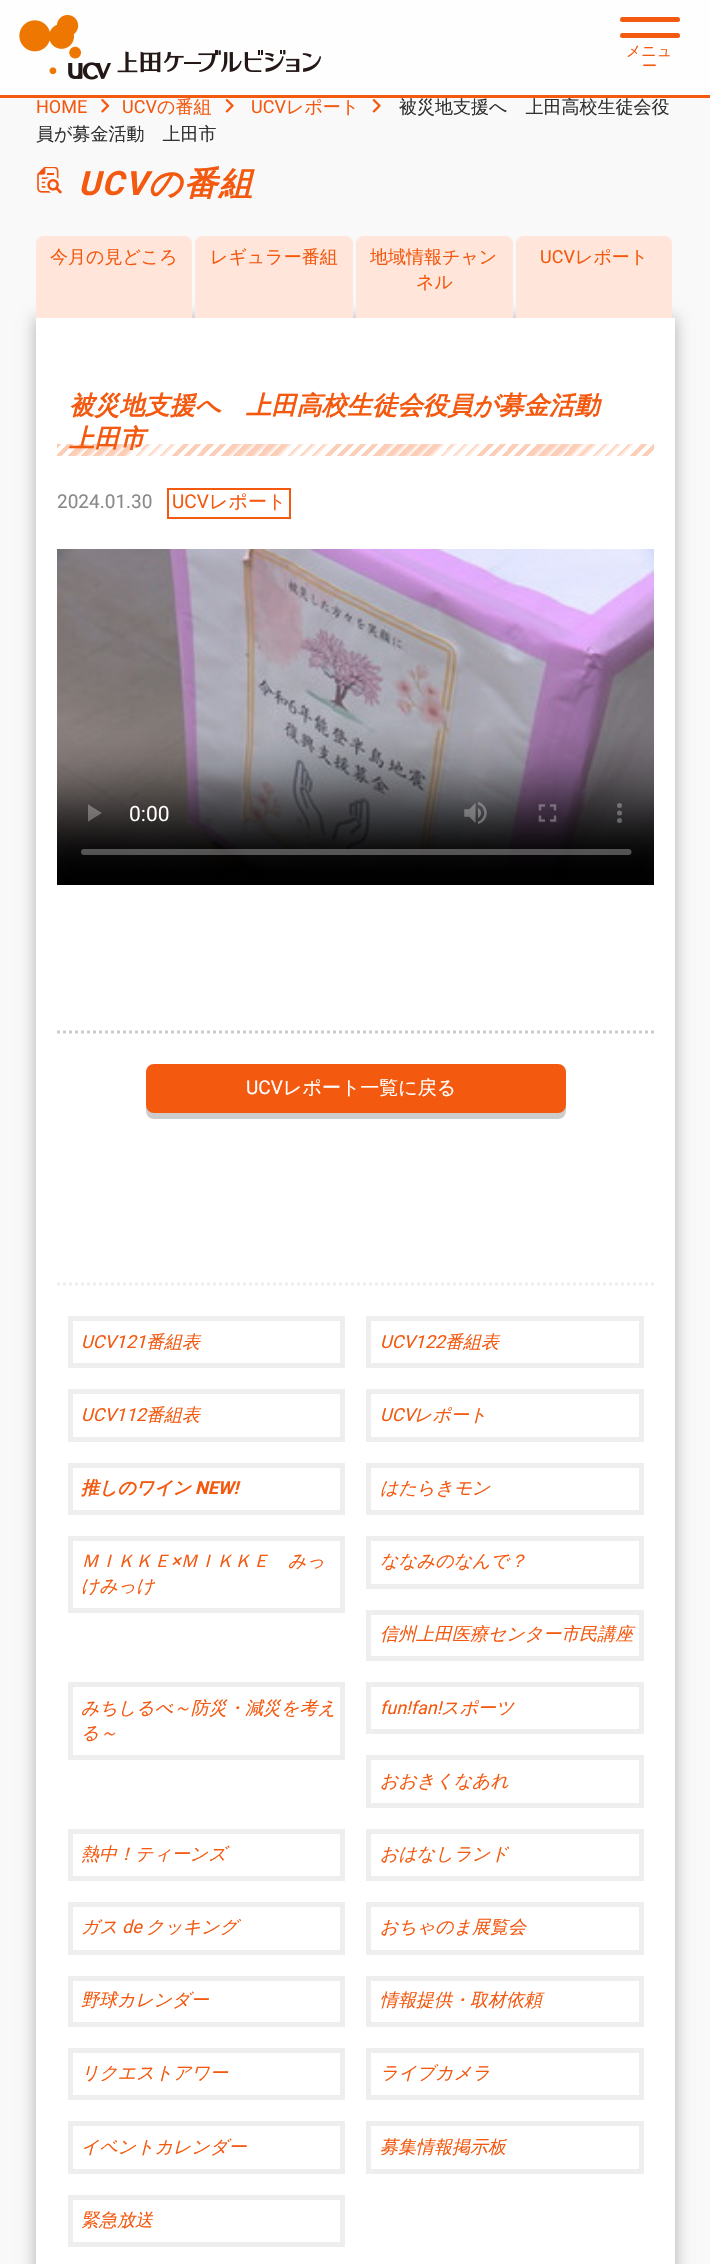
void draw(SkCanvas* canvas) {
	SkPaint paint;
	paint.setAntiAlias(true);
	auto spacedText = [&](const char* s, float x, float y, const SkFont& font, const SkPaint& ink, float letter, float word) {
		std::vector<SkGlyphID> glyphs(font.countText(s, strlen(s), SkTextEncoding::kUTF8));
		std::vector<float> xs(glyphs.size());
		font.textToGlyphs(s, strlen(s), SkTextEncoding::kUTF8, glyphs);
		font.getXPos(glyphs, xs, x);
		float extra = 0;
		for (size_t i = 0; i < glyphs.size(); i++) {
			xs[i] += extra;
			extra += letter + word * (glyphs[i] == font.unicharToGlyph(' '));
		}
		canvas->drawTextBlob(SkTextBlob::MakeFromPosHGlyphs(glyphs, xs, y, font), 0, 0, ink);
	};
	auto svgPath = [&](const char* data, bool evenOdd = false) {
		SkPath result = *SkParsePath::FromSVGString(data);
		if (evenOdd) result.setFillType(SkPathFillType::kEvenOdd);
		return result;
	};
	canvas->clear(0xfff9f9f9);
	paint.setColor(0xd6ffffff);
	canvas->drawRect(SkRect::MakeXYWH(0, 0, 710, 95), paint);
	SkFont f1(fontMgr->matchFamilyStyle("WenQuanYi Zen Hei", SkFontStyle(500, SkFontStyle::kNormal_Width, SkFontStyle::kUpright_Slant)), 18);
	f1.setSubpixel(true);
	paint.setColor(0xff313131);
	canvas->drawString("被災地支援へ　上田高校生徒会役", 399, 113, f1, paint);
	paint.setColor(0xfff45910);
	canvas->drawRect(SkRect::MakeXYWH(0, 95, 710, 3), paint);
	canvas->drawImageRect(SkImages::DeferredFromEncodedData(SkData::MakeFromFileName("img1.png")), SkRect::MakeXYWH(19, 15, 302, 65), SkSamplingOptions());
	canvas->drawRoundRect(SkRect::MakeXYWH(620, 17, 60, 5), 2.5, 2.5, paint);
	canvas->drawRoundRect(SkRect::MakeXYWH(620, 33, 60, 5), 2.5, 2.5, paint);
	SkFont f2(fontMgr->matchFamilyStyle("WenQuanYi Zen Hei", SkFontStyle(500, SkFontStyle::kNormal_Width, SkFontStyle::kUpright_Slant)), 15);
	f2.setSubpixel(true);
	canvas->drawString("メニュ", 626, 56, f2, paint);
	canvas->drawString("ー", 642, 71, f2, paint);
	SkFont f3(fontMgr->matchFamilyStyle("Roboto", SkFontStyle::Normal()), 18);
	f3.setSubpixel(true);
	canvas->drawString("HOME", 36, 113, f3, paint);
	canvas->drawImageRect(SkImages::DeferredFromEncodedData(SkData::MakeFromFileName("img2.png")), SkRect::MakeXYWH(101, 99, 9, 14), SkSamplingOptions());
	canvas->drawString("UCV", 122, 113, f3, paint);
	canvas->drawString("の番組", 157, 113, f1, paint);
	canvas->drawImageRect(SkImages::DeferredFromEncodedData(SkData::MakeFromFileName("img3.png")), SkRect::MakeXYWH(225, 99, 9, 14), SkSamplingOptions());
	canvas->drawString("UCV", 251, 113, f3, paint);
	canvas->drawString("レポート", 286, 113, f1, paint);
	canvas->drawImageRect(SkImages::DeferredFromEncodedData(SkData::MakeFromFileName("img3.png")), SkRect::MakeXYWH(372, 99, 9, 14), SkSamplingOptions());
	paint.setColor(0xff313131);
	canvas->drawString("員が募金活動　上田市", 36, 140, f1, paint);
	canvas->drawImageRect(SkImages::DeferredFromEncodedData(SkData::MakeFromFileName("img4.png")), SkRect::MakeXYWH(37, 167, 25, 27), SkSamplingOptions());
	SkFont f4(fontMgr->matchFamilyStyle("Roboto", SkFontStyle::BoldItalic()), 33.5);
	f4.setSubpixel(true);
	paint.setColor(0xfff45910);
	spacedText("UCV", 78, 195, f4, paint, 1.5, 0);
	SkFont f5(fontMgr->matchFamilyStyle("WenQuanYi Zen Hei", SkFontStyle::BoldItalic()), 33.5);
	f5.setSubpixel(true);
	spacedText("の番組", 148, 195, f5, paint, 1.5, 0);
	paint.setColor(0x4d000000);
	paint.setMaskFilter(SkMaskFilter::MakeBlur(kNormal_SkBlurStyle, 7.5));
	canvas->drawRect(SkRect::MakeXYWH(36, 318, 639, 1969), paint);
	paint.setMaskFilter(nullptr);
	paint.setColor(0xffffe5da);
	canvas->drawPath(svgPath("M44 236H184C188.5 236 192 239.5 192 244V318H36V244C36 239.5 39.5 236 44 236Z"), paint);
	paint.setColor(0xfff45910);
	canvas->drawString("今月の見どころ", 50, 263, f1, paint);
	paint.setColor(0xffffe5da);
	canvas->drawPath(svgPath("M203 236H345C349.5 236 353 239.5 353 244V318H195V244C195 239.5 198.5 236 203 236Z"), paint);
	paint.setColor(0xfff45910);
	canvas->drawString("レギュラー番組", 210, 263, f1, paint);
	paint.setColor(0xffffe5da);
	canvas->drawPath(svgPath("M364 236H505C509.5 236 513 239.5 513 244V318H356V244C356 239.5 359.5 236 364 236Z"), paint);
	paint.setColor(0xfff45910);
	canvas->drawString("地域情報チャン", 370, 263, f1, paint);
	canvas->drawString("ネル", 416, 288, f1, paint);
	paint.setColor(0xffffe5da);
	canvas->drawPath(svgPath("M524 236H664C668.5 236 672 239.5 672 244V318H516V244C516 239.5 519.5 236 524 236Z"), paint);
	paint.setColor(0xfff45910);
	canvas->drawString("UCV", 540, 263, f3, paint);
	canvas->drawString("レポート", 575, 263, f1, paint);
	paint.setColor(0xffffffff);
	canvas->drawRect(SkRect::MakeXYWH(36, 318, 639, 1946), paint);
	paint.setStroke(true);
	paint.setStrokeWidth(3);
	paint.setColor(0xffeeeeee);
	paint.setPathEffect(SkDashPathEffect::Make({{3, 3}}, 0));
	canvas->drawPath(svgPath("M57 1284H654"), paint);
	paint.setPathEffect(nullptr);
	SkFont f6(fontMgr->matchFamilyStyle("WenQuanYi Zen Hei", SkFontStyle::BoldItalic()), 25.2);
	f6.setSubpixel(true);
	paint.setStroke(false);
	paint.setColor(0xfff45910);
	canvas->drawString("被災地支援へ　上田高校生徒会役員が募金活動", 69, 414, f6, paint);
	{
		const SkColor colors[] = {0xffffffff, 0xffffffff, 0xfffccdb7, 0xfffccdb7, 0xffffffff, 0xffffffff, 0xfffccdb7, 0xfffccdb7, 0xffffffff, 0xffffffff, 0xfffccdb7, 0xffffffff, 0xffffffff, 0xfffccdb7, 0xffffffff, 0xffffffff, 0xfffccdb7, 0xffffffff, 0xffffffff, 0xfffccdb7, 0xffffffff, 0xfffccdb7, 0xfffccdb7, 0xffffffff, 0xfffccdb7, 0xfffccdb7, 0xffffffff, 0xfffccdb7, 0xfffccdb7, 0xffffffff, 0xfffccdb7, 0xfffccdb7, 0xffffffff, 0xffffffff, 0xfffccdb7, 0xfffccdb7, 0xffffffff, 0xffffffff, 0xfffccdb7, 0xfffccdb7, 0xffffffff, 0xffffffff, 0xfffccdb7, 0xfffccdb7, 0xffffffff, 0xffffffff, 0xfffccdb7, 0xfffccdb7, 0xffffffff, 0xffffffff, 0xfffccdb7, 0xffffffff, 0xffffffff, 0xfffccdb7, 0xffffffff, 0xffffffff, 0xfffccdb7, 0xffffffff, 0xffffffff, 0xfffccdb7, 0xfffccdb7, 0xffffffff, 0xfffccdb7, 0xfffccdb7, 0xffffffff, 0xfffccdb7, 0xfffccdb7, 0xffffffff, 0xfffccdb7, 0xfffccdb7, 0xffffffff, 0xfffccdb7, 0xfffccdb7, 0xffffffff, 0xffffffff, 0xfffccdb7, 0xfffccdb7, 0xffffffff, 0xffffffff, 0xfffccdb7, 0xfffccdb7, 0xffffffff, 0xffffffff, 0xfffccdb7, 0xfffccdb7, 0xffffffff, 0xffffffff, 0xfffccdb7, 0xfffccdb7, 0xffffffff, 0xffffffff, 0xfffccdb7, 0xffffffff, 0xffffffff, 0xfffccdb7, 0xffffffff, 0xffffffff, 0xfffccdb7, 0xffffffff, 0xffffffff, 0xfffccdb7, 0xfffccdb7, 0xffffffff, 0xffffffff, 0xfffccdb7, 0xfffccdb7, 0xffffffff, 0xfffccdb7, 0xfffccdb7, 0xffffffff, 0xfffccdb7, 0xfffccdb7, 0xffffffff, 0xfffccdb7, 0xfffccdb7, 0xffffffff, 0xffffffff, 0xfffccdb7, 0xfffccdb7, 0xffffffff, 0xffffffff, 0xfffccdb7, 0xfffccdb7, 0xffffffff, 0xffffffff, 0xfffccdb7, 0xfffccdb7, 0xffffffff, 0xffffffff, 0xfffccdb7, 0xfffccdb7, 0xffffffff, 0xffffffff, 0xfffccdb7, 0xffffffff, 0xffffffff, 0xfffccdb7, 0xffffffff, 0xffffffff, 0xfffccdb7, 0xffffffff, 0xffffffff, 0xfffccdb7, 0xfffccdb7, 0xffffffff, 0xfffccdb7, 0xfffccdb7, 0xffffffff, 0xfffccdb7, 0xfffccdb7, 0xffffffff, 0xfffccdb7, 0xfffccdb7, 0xffffffff, 0xfffccdb7, 0xfffccdb7, 0xffffffff, 0xffffffff, 0xfffccdb7, 0xfffccdb7, 0xffffffff, 0xffffffff, 0xfffccdb7, 0xfffccdb7};
		const float stops[] = {0, 0.01, 0.01, 0.02, 0.02, 0.03, 0.03, 0.04, 0.04, 0.05, 0.06, 0.06, 0.07, 0.08, 0.08, 0.09, 0.1, 0.1, 0.11, 0.12, 0.13, 0.14, 0.15, 0.15, 0.16, 0.17, 0.17, 0.18, 0.19, 0.19, 0.2, 0.21, 0.21, 0.22, 0.22, 0.23, 0.23, 0.24, 0.24, 0.25, 0.25, 0.26, 0.26, 0.27, 0.27, 0.28, 0.28, 0.29, 0.29, 0.3, 0.31, 0.31, 0.32, 0.33, 0.33, 0.34, 0.35, 0.35, 0.36, 0.37, 0.38, 0.38, 0.39, 0.4, 0.4, 0.41, 0.42, 0.42, 0.43, 0.44, 0.44, 0.45, 0.46, 0.46, 0.47, 0.47, 0.48, 0.48, 0.49, 0.49, 0.5, 0.5, 0.51, 0.51, 0.52, 0.52, 0.53, 0.53, 0.54, 0.54, 0.55, 0.56, 0.56, 0.57, 0.58, 0.58, 0.59, 0.6, 0.6, 0.61, 0.62, 0.63, 0.62, 0.63, 0.64, 0.65, 0.65, 0.66, 0.67, 0.67, 0.68, 0.69, 0.69, 0.7, 0.71, 0.71, 0.72, 0.72, 0.73, 0.73, 0.74, 0.74, 0.75, 0.75, 0.76, 0.76, 0.77, 0.77, 0.78, 0.78, 0.79, 0.79, 0.8, 0.81, 0.81, 0.82, 0.83, 0.83, 0.84, 0.85, 0.85, 0.86, 0.87, 0.88, 0.88, 0.89, 0.9, 0.9, 0.91, 0.92, 0.92, 0.93, 0.94, 0.94, 0.95, 0.96, 0.96, 0.97, 0.97, 0.98, 0.98, 0.99, 0.99, 1};
		const SkPoint ends[] = {{508, 602}, {202, 297}};
		paint.setShader(SkGradientShader::MakeLinear(ends, colors, stops, 164, SkTileMode::kClamp));
		paint.setAlpha(255);
	}
	canvas->drawRect(SkRect::MakeXYWH(57, 444, 597, 12), paint);
	paint.setShader(nullptr);
	paint.setColor(0xfff45910);
	canvas->drawString("上田市", 69, 447, f6, paint);
	SkFont f7(fontMgr->matchFamilyStyle("Roboto", SkFontStyle::Normal()), 19);
	f7.setSubpixel(true);
	paint.setColor(0xff898989);
	canvas->drawString("2024.01.30", 57, 508, f7, paint);
	paint.setStroke(true);
	paint.setStrokeWidth(2);
	paint.setColor(0xfff45910);
	canvas->drawRect(SkRect::MakeXYWH(168, 489, 122, 29), paint);
	paint.setStroke(false);
	canvas->drawString("UCV", 172, 508, f7, paint);
	SkFont f8(fontMgr->matchFamilyStyle("WenQuanYi Zen Hei", SkFontStyle(500, SkFontStyle::kNormal_Width, SkFontStyle::kUpright_Slant)), 19);
	f8.setSubpixel(true);
	canvas->drawString("レポート", 209, 508, f8, paint);
	canvas->drawImageRect(SkImages::DeferredFromEncodedData(SkData::MakeFromFileName("img5.png")), SkRect::MakeXYWH(57, 549, 597, 336), SkSamplingOptions());
	paint.setStroke(true);
	paint.setStrokeWidth(3);
	paint.setColor(0xffcccccc);
	paint.setPathEffect(SkDashPathEffect::Make({{3, 3}}, 0));
	canvas->drawPath(svgPath("M57 1032H654"), paint);
	paint.setPathEffect(nullptr);
	paint.setStroke(false);
	canvas->drawRoundRect(SkRect::MakeXYWH(146, 1070, 420, 49), 8, 8, paint);
	paint.setColor(0xfff45910);
	canvas->drawRoundRect(SkRect::MakeXYWH(147, 1065, 418, 47), 7, 7, paint);
	paint.setStroke(true);
	paint.setStrokeWidth(2);
	canvas->drawRoundRect(SkRect::MakeXYWH(147, 1065, 418, 47), 7, 7, paint);
	paint.setStroke(false);
	paint.setColor(0xffffffff);
	canvas->drawString("UCV", 246, 1094, f7, paint);
	canvas->drawString("レポート一覧に戻る", 283, 1094, f8, paint);
	paint.setStroke(true);
	paint.setStrokeWidth(5);
	paint.setColor(0xffeeeeee);
	canvas->drawRect(SkRect::MakeXYWH(70.5, 1318.5, 272, 47), paint);
	SkFont f9(fontMgr->matchFamilyStyle("Roboto", SkFontStyle::Italic()), 18);
	f9.setSubpixel(true);
	paint.setStroke(false);
	paint.setColor(0xfff45910);
	canvas->drawString("UCV121", 81, 1348, f9, paint);
	SkFont f10(fontMgr->matchFamilyStyle("WenQuanYi Zen Hei", SkFontStyle(500, SkFontStyle::kNormal_Width, SkFontStyle::kItalic_Slant)), 18);
	f10.setSubpixel(true);
	canvas->drawString("番組表", 146, 1348, f10, paint);
	paint.setStroke(true);
	paint.setColor(0xffeeeeee);
	canvas->drawRect(SkRect::MakeXYWH(368.5, 1318.5, 273, 47), paint);
	paint.setStroke(false);
	paint.setColor(0xfff45910);
	canvas->drawString("UCV122", 380, 1348, f9, paint);
	canvas->drawString("番組表", 445, 1348, f10, paint);
	paint.setStroke(true);
	paint.setColor(0xffeeeeee);
	canvas->drawRect(SkRect::MakeXYWH(70.5, 1391.5, 272, 48), paint);
	paint.setStroke(false);
	paint.setColor(0xfff45910);
	canvas->drawString("UCV112", 81, 1421, f9, paint);
	canvas->drawString("番組表", 146, 1421, f10, paint);
	paint.setStroke(true);
	paint.setColor(0xffeeeeee);
	canvas->drawRect(SkRect::MakeXYWH(368.5, 1391.5, 273, 48), paint);
	paint.setStroke(false);
	paint.setColor(0xfff45910);
	canvas->drawString("UCV", 380, 1421, f9, paint);
	canvas->drawString("レポート", 414, 1421, f10, paint);
	paint.setStroke(true);
	paint.setColor(0xffeeeeee);
	canvas->drawRect(SkRect::MakeXYWH(70.5, 1465.5, 272, 47), paint);
	SkFont f11(fontMgr->matchFamilyStyle("WenQuanYi Zen Hei", SkFontStyle::BoldItalic()), 18);
	f11.setSubpixel(true);
	paint.setStroke(false);
	paint.setColor(0xfff45910);
	canvas->drawString("推しのワイン", 81, 1494, f11, paint);
	SkFont f12(fontMgr->matchFamilyStyle("Roboto", SkFontStyle::BoldItalic()), 18);
	f12.setSubpixel(true);
	canvas->drawString("NEW!", 195, 1494, f12, paint);
	paint.setStroke(true);
	paint.setColor(0xffeeeeee);
	canvas->drawRect(SkRect::MakeXYWH(368.5, 1465.5, 273, 47), paint);
	paint.setStroke(false);
	paint.setColor(0xfff45910);
	canvas->drawString("はたらきモン", 380, 1494, f10, paint);
	paint.setStroke(true);
	paint.setColor(0xffeeeeee);
	canvas->drawRect(SkRect::MakeXYWH(70.5, 1538.5, 272, 72), paint);
	paint.setStroke(false);
	paint.setColor(0xfff45910);
	canvas->drawString("ＭＩＫＫＥ", 81, 1567, f10, paint);
	canvas->drawString("×", 171, 1567, f9, paint);
	canvas->drawString("ＭＩＫＫＥ　みっ", 180, 1567, f10, paint);
	canvas->drawString("けみっけ", 81, 1592, f10, paint);
	paint.setStroke(true);
	paint.setColor(0xffeeeeee);
	canvas->drawRect(SkRect::MakeXYWH(368.5, 1538.5, 273, 48), paint);
	paint.setStroke(false);
	paint.setColor(0xfff45910);
	canvas->drawString("ななみのなんで？", 380, 1567, f10, paint);
	paint.setStroke(true);
	paint.setColor(0xffeeeeee);
	canvas->drawRect(SkRect::MakeXYWH(368.5, 1612.5, 273, 46), paint);
	paint.setStroke(false);
	paint.setColor(0xfff45910);
	canvas->drawString("信州上田医療センター市民講座", 380, 1640, f10, paint);
	paint.setStroke(true);
	paint.setColor(0xffeeeeee);
	canvas->drawRect(SkRect::MakeXYWH(70.5, 1684.5, 272, 73), paint);
	paint.setStroke(false);
	paint.setColor(0xfff45910);
	canvas->drawString("みちしるべ～防災・減災を考え", 81, 1714, f10, paint);
	canvas->drawString("る～", 81, 1739, f10, paint);
	paint.setStroke(true);
	paint.setColor(0xffeeeeee);
	canvas->drawRect(SkRect::MakeXYWH(368.5, 1684.5, 273, 47), paint);
	paint.setStroke(false);
	paint.setColor(0xfff45910);
	canvas->drawString("fun!fan!", 380, 1714, f9, paint);
	canvas->drawString("スポーツ", 441, 1714, f10, paint);
	paint.setStroke(true);
	paint.setColor(0xffeeeeee);
	canvas->drawRect(SkRect::MakeXYWH(368.5, 1757.5, 273, 48), paint);
	paint.setStroke(false);
	paint.setColor(0xfff45910);
	canvas->drawString("おおきくなあれ", 380, 1787, f10, paint);
	paint.setStroke(true);
	paint.setColor(0xffeeeeee);
	canvas->drawRect(SkRect::MakeXYWH(70.5, 1831.5, 272, 47), paint);
	paint.setStroke(false);
	paint.setColor(0xfff45910);
	canvas->drawString("熱中！ティーンズ", 81, 1860, f10, paint);
	paint.setStroke(true);
	paint.setColor(0xffeeeeee);
	canvas->drawRect(SkRect::MakeXYWH(368.5, 1831.5, 273, 47), paint);
	paint.setStroke(false);
	paint.setColor(0xfff45910);
	canvas->drawString("おはなしランド", 380, 1860, f10, paint);
	paint.setStroke(true);
	paint.setColor(0xffeeeeee);
	canvas->drawRect(SkRect::MakeXYWH(70.5, 1904.5, 272, 48), paint);
	paint.setStroke(false);
	paint.setColor(0xfff45910);
	canvas->drawString("ガス", 81, 1933, f10, paint);
	canvas->drawString("de", 122, 1933, f9, paint);
	canvas->drawString("クッキング", 146, 1933, f10, paint);
	paint.setStroke(true);
	paint.setColor(0xffeeeeee);
	canvas->drawRect(SkRect::MakeXYWH(368.5, 1904.5, 273, 48), paint);
	paint.setStroke(false);
	paint.setColor(0xfff45910);
	canvas->drawString("おちゃのま展覧会", 380, 1933, f10, paint);
	paint.setStroke(true);
	paint.setColor(0xffeeeeee);
	canvas->drawRect(SkRect::MakeXYWH(70.5, 1978.5, 272, 46), paint);
	paint.setStroke(false);
	paint.setColor(0xfff45910);
	canvas->drawString("野球カレンダー", 81, 2006, f10, paint);
	paint.setStroke(true);
	paint.setColor(0xffeeeeee);
	canvas->drawRect(SkRect::MakeXYWH(368.5, 1978.5, 273, 46), paint);
	paint.setStroke(false);
	paint.setColor(0xfff45910);
	canvas->drawString("情報提供・取材依頼", 380, 2006, f10, paint);
	paint.setStroke(true);
	paint.setColor(0xffeeeeee);
	canvas->drawRect(SkRect::MakeXYWH(70.5, 2050.5, 272, 47), paint);
	paint.setStroke(false);
	paint.setColor(0xfff45910);
	canvas->drawString("リクエストアワー", 81, 2079, f10, paint);
	paint.setStroke(true);
	paint.setColor(0xffeeeeee);
	canvas->drawRect(SkRect::MakeXYWH(368.5, 2050.5, 273, 47), paint);
	paint.setStroke(false);
	paint.setColor(0xfff45910);
	canvas->drawString("ライブカメラ", 380, 2079, f10, paint);
	paint.setStroke(true);
	paint.setColor(0xffeeeeee);
	canvas->drawRect(SkRect::MakeXYWH(70.5, 2123.5, 272, 48), paint);
	paint.setStroke(false);
	paint.setColor(0xfff45910);
	canvas->drawString("イベントカレンダー", 81, 2153, f10, paint);
	paint.setStroke(true);
	paint.setColor(0xffeeeeee);
	canvas->drawRect(SkRect::MakeXYWH(368.5, 2123.5, 273, 48), paint);
	paint.setStroke(false);
	paint.setColor(0xfff45910);
	canvas->drawString("募集情報掲示板", 380, 2153, f10, paint);
	paint.setStroke(true);
	paint.setColor(0xffeeeeee);
	canvas->drawRect(SkRect::MakeXYWH(70.5, 2197.5, 272, 47), paint);
	paint.setStroke(false);
	paint.setColor(0xfff45910);
	canvas->drawString("緊急放送", 81, 2226, f10, paint);
}
